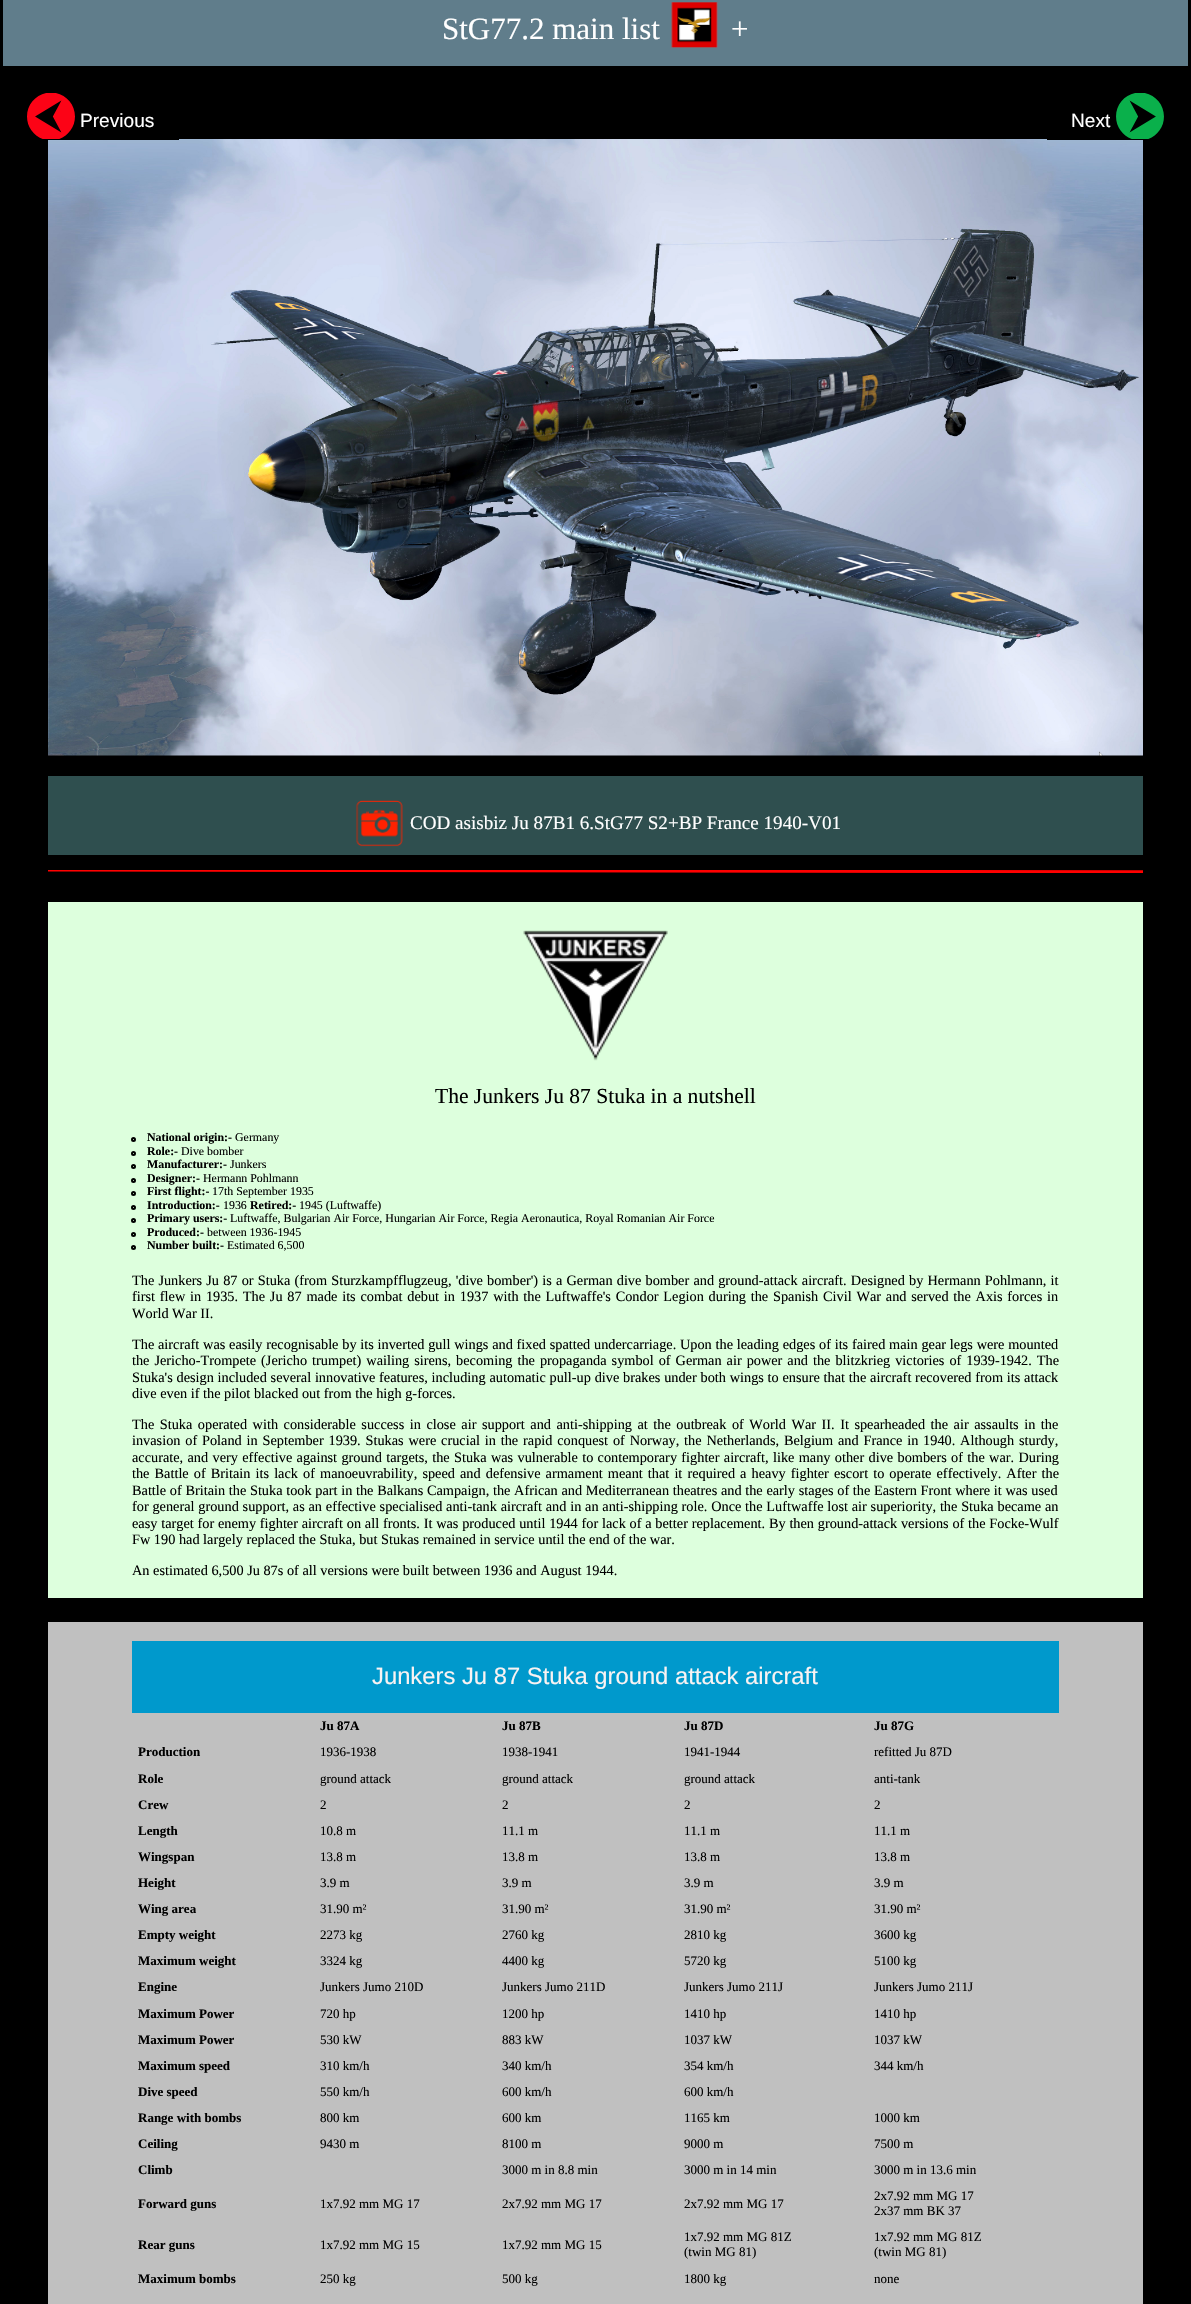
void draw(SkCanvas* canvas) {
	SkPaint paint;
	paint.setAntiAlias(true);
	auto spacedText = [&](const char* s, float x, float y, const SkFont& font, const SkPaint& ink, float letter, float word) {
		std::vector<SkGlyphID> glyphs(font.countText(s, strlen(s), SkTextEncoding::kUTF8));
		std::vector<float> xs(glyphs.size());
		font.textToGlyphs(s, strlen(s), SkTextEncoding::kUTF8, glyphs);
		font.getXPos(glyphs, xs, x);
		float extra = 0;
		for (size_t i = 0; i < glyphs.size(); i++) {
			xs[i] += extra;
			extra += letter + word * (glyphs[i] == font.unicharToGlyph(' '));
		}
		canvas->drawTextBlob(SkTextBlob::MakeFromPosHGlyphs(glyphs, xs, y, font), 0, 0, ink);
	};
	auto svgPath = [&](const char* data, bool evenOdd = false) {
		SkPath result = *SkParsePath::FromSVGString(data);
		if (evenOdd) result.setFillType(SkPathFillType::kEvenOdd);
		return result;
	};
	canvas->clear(0xff000000);
	paint.setColor(0xff607d8b);
	canvas->drawRect(SkRect::MakeXYWH(3, 0, 1185, 66), paint);
	SkFont f1(fontMgr->matchFamilyStyle("Liberation Serif", SkFontStyle::Normal()), 31);
	f1.setSubpixel(true);
	paint.setColor(0xffffffff);
	canvas->drawString("StG77.2 main list", 442, 39, f1, paint);
	canvas->drawImageRect(SkImages::DeferredFromEncodedData(SkData::MakeFromFileName("img1.png")), SkRect::MakeXYWH(671, 2, 47, 46), SkSamplingOptions());
	canvas->drawString("+", 731, 39, f1, paint);
	canvas->drawImageRect(SkImages::DeferredFromEncodedData(SkData::MakeFromFileName("img4.png")), SkRect::MakeXYWH(48, 139, 1095, 617), SkSamplingOptions());
	paint.setColor(0xff000000);
	canvas->drawRect(SkRect::MakeXYWH(48, 139, 131, 1), paint);
	canvas->drawImageRect(SkImages::DeferredFromEncodedData(SkData::MakeFromFileName("img2.png")), SkRect::MakeXYWH(27, 93, 48, 46), SkSamplingOptions());
	SkFont f2(fontMgr->matchFamilyStyle("Liberation Sans", SkFontStyle::Normal()), 19.1);
	f2.setSubpixel(true);
	paint.setColor(0xffffffff);
	canvas->drawString("Previous", 80, 127, f2, paint);
	paint.setColor(0xff000000);
	canvas->drawRect(SkRect::MakeXYWH(1047, 139, 96, 1), paint);
	paint.setColor(0xffffffff);
	canvas->drawString("Next", 1071, 127, f2, paint);
	canvas->drawImageRect(SkImages::DeferredFromEncodedData(SkData::MakeFromFileName("img3.png")), SkRect::MakeXYWH(1116, 93, 48, 46), SkSamplingOptions());
	paint.setColor(0xff2f4f4f);
	canvas->drawRect(SkRect::MakeXYWH(48, 776, 1095, 79), paint);
	canvas->drawImageRect(SkImages::DeferredFromEncodedData(SkData::MakeFromFileName("img5.png")), SkRect::MakeXYWH(356, 800, 47, 47), SkSamplingOptions());
	SkFont f3(fontMgr->matchFamilyStyle("Liberation Serif", SkFontStyle::Normal()), 19.1);
	f3.setSubpixel(true);
	paint.setColor(0xffffffff);
	canvas->drawString("COD asisbiz Ju 87B1 6.StG77 S2+BP France 1940-V01", 410, 829, f3, paint);
	canvas->save();
	canvas->clipRect(SkRect::MakeXYWH(48, 870, 1095, 3));
	paint.setStroke(true);
	paint.setStrokeWidth(3);
	paint.setColor(0xffff0000);
	canvas->drawPath(svgPath("M48 870L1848 873"), paint);
	canvas->restore();
	paint.setStroke(false);
	paint.setColor(0xffddffdd);
	canvas->drawRect(SkRect::MakeXYWH(48, 902, 1095, 696), paint);
	canvas->drawImageRect(SkImages::DeferredFromEncodedData(SkData::MakeFromFileName("img6.png")), SkRect::MakeXYWH(523, 930, 145, 131), SkSamplingOptions());
	SkFont f4(fontMgr->matchFamilyStyle("Liberation Serif", SkFontStyle::Normal()), 21.5);
	f4.setSubpixel(true);
	paint.setColor(0xff000000);
	canvas->drawString("The Junkers Ju 87 Stuka in a nutshell", 435, 1103, f4, paint);
	paint.setStroke(true);
	paint.setStrokeWidth(2);
	canvas->drawCircle(133.5, 1139.5, 1.5, paint);
	SkFont f5(fontMgr->matchFamilyStyle("Liberation Serif", SkFontStyle::Bold()), 11.9);
	f5.setSubpixel(true);
	paint.setStroke(false);
	canvas->drawString("National origin:-", 147, 1141, f5, paint);
	SkFont f6(fontMgr->matchFamilyStyle("Liberation Serif", SkFontStyle::Normal()), 11.9);
	f6.setSubpixel(true);
	canvas->drawString("Germany", 235, 1141, f6, paint);
	paint.setStroke(true);
	canvas->drawCircle(133.5, 1153.5, 1.5, paint);
	paint.setStroke(false);
	canvas->drawString("Role:-", 147, 1155, f5, paint);
	canvas->drawString("Dive bomber", 181, 1155, f6, paint);
	paint.setStroke(true);
	canvas->drawCircle(133.5, 1166.5, 1.5, paint);
	paint.setStroke(false);
	canvas->drawString("Manufacturer:-", 147, 1168, f5, paint);
	canvas->drawString("Junkers", 230, 1168, f6, paint);
	paint.setStroke(true);
	canvas->drawCircle(133.5, 1180.5, 1.5, paint);
	paint.setStroke(false);
	canvas->drawString("Designer:-", 147, 1182, f5, paint);
	canvas->drawString("Hermann Pohlmann", 203, 1182, f6, paint);
	paint.setStroke(true);
	canvas->drawCircle(133.5, 1193.5, 1.5, paint);
	paint.setStroke(false);
	canvas->drawString("First flight:-", 147, 1195, f5, paint);
	canvas->drawString("17th September 1935", 212, 1195, f6, paint);
	paint.setStroke(true);
	canvas->drawCircle(133.5, 1207.5, 1.5, paint);
	paint.setStroke(false);
	canvas->drawString("Introduction:-", 147, 1209, f5, paint);
	canvas->drawString("1936", 223, 1209, f6, paint);
	canvas->drawString("Retired:-", 250, 1209, f5, paint);
	canvas->drawString("1945 (Luftwaffe)", 299, 1209, f6, paint);
	paint.setStroke(true);
	canvas->drawCircle(133.5, 1220.5, 1.5, paint);
	paint.setStroke(false);
	canvas->drawString("Primary users:-", 147, 1222, f5, paint);
	canvas->drawString("Luftwaffe, Bulgarian Air Force, Hungarian Air Force, Regia Aeronautica, Royal Romanian Air Force", 230, 1222, f6, paint);
	paint.setStroke(true);
	canvas->drawCircle(133.5, 1234.5, 1.5, paint);
	paint.setStroke(false);
	canvas->drawString("Produced:-", 147, 1236, f5, paint);
	canvas->drawString("between 1936-1945", 207, 1236, f6, paint);
	paint.setStroke(true);
	canvas->drawCircle(133.5, 1247.5, 1.5, paint);
	paint.setStroke(false);
	canvas->drawString("Number built:-", 147, 1249, f5, paint);
	canvas->drawString("Estimated 6,500", 227, 1249, f6, paint);
	SkFont f7(fontMgr->matchFamilyStyle("Liberation Serif", SkFontStyle::Normal()), 14.3);
	f7.setSubpixel(true);
	spacedText("The Junkers Ju 87 or Stuka (from Sturzkampfflugzeug, 'dive bomber') is a German dive bomber and ground-attack aircraft. Designed by Hermann Pohlmann, it", 132, 1285, f7, paint, 0, 0.6);
	spacedText("first flew in 1935. The Ju 87 made its combat debut in 1937 with the Luftwaffe's Condor Legion during the Spanish Civil War and served the Axis forces in", 132, 1301, f7, paint, 0, 1.2);
	canvas->drawString("World War II.", 132, 1318, f7, paint);
	spacedText("The aircraft was easily recognisable by its inverted gull wings and fixed spatted undercarriage. Upon the leading edges of its faired main gear legs were mounted", 132, 1349, f7, paint, 0, 0.2);
	spacedText("the Jericho-Trompete (Jericho trumpet) wailing sirens, becoming the propaganda symbol of German air power and the blitzkrieg victories of 1939-1942. The", 132, 1365, f7, paint, 0, 1.4);
	spacedText("Stuka's design included several innovative features, including automatic pull-up dive brakes under both wings to ensure that the aircraft recovered from its attack", 132, 1382, f7, paint, 0, 0.2);
	canvas->drawString("dive even if the pilot blacked out from the high g-forces.", 132, 1398, f7, paint);
	spacedText("The Stuka operated with considerable success in close air support and anti-shipping at the outbreak of World War II. It spearheaded the air assaults in the", 132, 1429, f7, paint, 0, 1.95);
	spacedText("invasion of Poland in September 1939. Stukas were crucial in the rapid conquest of Norway, the Netherlands, Belgium and France in 1940. Although sturdy,", 132, 1445, f7, paint, 0, 1.25);
	spacedText("accurate, and very effective against ground targets, the Stuka was vulnerable to contemporary fighter aircraft, like many other dive bombers of the war. During", 132, 1462, f7, paint, 0, 0.75);
	spacedText("the Battle of Britain its lack of manoeuvrability, speed and defensive armament meant that it required a heavy fighter escort to operate effectively. After the", 132, 1478, f7, paint, 0, 1.5);
	spacedText("Battle of Britain the Stuka took part in the Balkans Campaign, the African and Mediterranean theatres and the early stages of the Eastern Front where it was used", 132, 1495, f7, paint, 0, 0.1);
	spacedText("for general ground support, as an effective specialised anti-tank aircraft and in an anti-shipping role. Once the Luftwaffe lost air superiority, the Stuka became an", 132, 1511, f7, paint, 0, 0.2);
	spacedText("easy target for enemy fighter aircraft on all fronts. It was produced until 1944 for lack of a better replacement. By then ground-attack versions of the Focke-Wulf", 132, 1528, f7, paint, 0, 0.2);
	canvas->drawString("Fw 190 had largely replaced the Stuka, but Stukas remained in service until the end of the war.", 132, 1544, f7, paint);
	canvas->drawString("An estimated 6,500 Ju 87s of all versions were built between 1936 and August 1944.", 132, 1575, f7, paint);
	paint.setColor(0xffc0c0c0);
	canvas->drawRect(SkRect::MakeXYWH(48, 1622, 1095, 682), paint);
	paint.setColor(0xff0099cc);
	canvas->drawRect(SkRect::MakeXYWH(132, 1641, 927, 72), paint);
	SkFont f8(fontMgr->matchFamilyStyle("Liberation Sans", SkFontStyle::Normal()), 23.8);
	f8.setSubpixel(true);
	paint.setColor(0xfff9f3f3);
	canvas->drawString("Junkers Ju 87 Stuka ground attack aircraft", 372, 1684, f8, paint);
	SkFont f9(fontMgr->matchFamilyStyle("Liberation Serif", SkFontStyle::Bold()), 13);
	f9.setSubpixel(true);
	paint.setColor(0xff000000);
	canvas->drawString("Ju 87A", 320, 1730, f9, paint);
	canvas->drawString("Ju 87B", 502, 1730, f9, paint);
	canvas->drawString("Ju 87D", 684, 1730, f9, paint);
	canvas->drawString("Ju 87G", 874, 1730, f9, paint);
	canvas->drawString("Production", 138, 1756, f9, paint);
	SkFont f10(fontMgr->matchFamilyStyle("Liberation Serif", SkFontStyle::Normal()), 13);
	f10.setSubpixel(true);
	canvas->drawString("1936-1938", 320, 1756, f10, paint);
	canvas->drawString("1938-1941", 502, 1756, f10, paint);
	canvas->drawString("1941-1944", 684, 1756, f10, paint);
	canvas->drawString("refitted Ju 87D", 874, 1756, f10, paint);
	canvas->drawString("Role", 138, 1783, f9, paint);
	canvas->drawString("ground attack", 320, 1783, f10, paint);
	canvas->drawString("ground attack", 502, 1783, f10, paint);
	canvas->drawString("ground attack", 684, 1783, f10, paint);
	canvas->drawString("anti-tank", 874, 1783, f10, paint);
	canvas->drawString("Crew", 138, 1809, f9, paint);
	canvas->drawString("2", 320, 1809, f10, paint);
	canvas->drawString("2", 502, 1809, f10, paint);
	canvas->drawString("2", 684, 1809, f10, paint);
	canvas->drawString("2", 874, 1809, f10, paint);
	canvas->drawString("Length", 138, 1835, f9, paint);
	canvas->drawString("10.8 m", 320, 1835, f10, paint);
	canvas->drawString("11.1 m", 502, 1835, f10, paint);
	canvas->drawString("11.1 m", 684, 1835, f10, paint);
	canvas->drawString("11.1 m", 874, 1835, f10, paint);
	canvas->drawString("Wingspan", 138, 1861, f9, paint);
	canvas->drawString("13.8 m", 320, 1861, f10, paint);
	canvas->drawString("13.8 m", 502, 1861, f10, paint);
	canvas->drawString("13.8 m", 684, 1861, f10, paint);
	canvas->drawString("13.8 m", 874, 1861, f10, paint);
	canvas->drawString("Height", 138, 1887, f9, paint);
	canvas->drawString("3.9 m", 320, 1887, f10, paint);
	canvas->drawString("3.9 m", 502, 1887, f10, paint);
	canvas->drawString("3.9 m", 684, 1887, f10, paint);
	canvas->drawString("3.9 m", 874, 1887, f10, paint);
	canvas->drawString("Wing area", 138, 1913, f9, paint);
	canvas->drawString("31.90 m²", 320, 1913, f10, paint);
	canvas->drawString("31.90 m²", 502, 1913, f10, paint);
	canvas->drawString("31.90 m²", 684, 1913, f10, paint);
	canvas->drawString("31.90 m²", 874, 1913, f10, paint);
	canvas->drawString("Empty weight", 138, 1939, f9, paint);
	canvas->drawString("2273 kg", 320, 1939, f10, paint);
	canvas->drawString("2760 kg", 502, 1939, f10, paint);
	canvas->drawString("2810 kg", 684, 1939, f10, paint);
	canvas->drawString("3600 kg", 874, 1939, f10, paint);
	canvas->drawString("Maximum weight", 138, 1965, f9, paint);
	canvas->drawString("3324 kg", 320, 1965, f10, paint);
	canvas->drawString("4400 kg", 502, 1965, f10, paint);
	canvas->drawString("5720 kg", 684, 1965, f10, paint);
	canvas->drawString("5100 kg", 874, 1965, f10, paint);
	canvas->drawString("Engine", 138, 1991, f9, paint);
	canvas->drawString("Junkers Jumo 210D", 320, 1991, f10, paint);
	canvas->drawString("Junkers Jumo 211D", 502, 1991, f10, paint);
	canvas->drawString("Junkers Jumo 211J", 684, 1991, f10, paint);
	canvas->drawString("Junkers Jumo 211J", 874, 1991, f10, paint);
	canvas->drawString("Maximum Power", 138, 2018, f9, paint);
	canvas->drawString("720 hp", 320, 2018, f10, paint);
	canvas->drawString("1200 hp", 502, 2018, f10, paint);
	canvas->drawString("1410 hp", 684, 2018, f10, paint);
	canvas->drawString("1410 hp", 874, 2018, f10, paint);
	canvas->drawString("Maximum Power", 138, 2044, f9, paint);
	canvas->drawString("530 kW", 320, 2044, f10, paint);
	canvas->drawString("883 kW", 502, 2044, f10, paint);
	canvas->drawString("1037 kW", 684, 2044, f10, paint);
	canvas->drawString("1037 kW", 874, 2044, f10, paint);
	canvas->drawString("Maximum speed", 138, 2070, f9, paint);
	canvas->drawString("310 km/h", 320, 2070, f10, paint);
	canvas->drawString("340 km/h", 502, 2070, f10, paint);
	canvas->drawString("354 km/h", 684, 2070, f10, paint);
	canvas->drawString("344 km/h", 874, 2070, f10, paint);
	canvas->drawString("Dive speed", 138, 2096, f9, paint);
	canvas->drawString("550 km/h", 320, 2096, f10, paint);
	canvas->drawString("600 km/h", 502, 2096, f10, paint);
	canvas->drawString("600 km/h", 684, 2096, f10, paint);
	canvas->drawString("Range with bombs", 138, 2122, f9, paint);
	canvas->drawString("800 km", 320, 2122, f10, paint);
	canvas->drawString("600 km", 502, 2122, f10, paint);
	canvas->drawString("1165 km", 684, 2122, f10, paint);
	canvas->drawString("1000 km", 874, 2122, f10, paint);
	canvas->drawString("Ceiling", 138, 2148, f9, paint);
	canvas->drawString("9430 m", 320, 2148, f10, paint);
	canvas->drawString("8100 m", 502, 2148, f10, paint);
	canvas->drawString("9000 m", 684, 2148, f10, paint);
	canvas->drawString("7500 m", 874, 2148, f10, paint);
	canvas->drawString("Climb", 138, 2174, f9, paint);
	canvas->drawString("3000 m in 8.8 min", 502, 2174, f10, paint);
	canvas->drawString("3000 m in 14 min", 684, 2174, f10, paint);
	canvas->drawString("3000 m in 13.6 min", 874, 2174, f10, paint);
	canvas->drawString("Forward guns", 138, 2208, f9, paint);
	canvas->drawString("1x7.92 mm MG 17", 320, 2208, f10, paint);
	canvas->drawString("2x7.92 mm MG 17", 502, 2208, f10, paint);
	canvas->drawString("2x7.92 mm MG 17", 684, 2208, f10, paint);
	canvas->drawString("2x7.92 mm MG 17", 874, 2200, f10, paint);
	canvas->drawString("2x37 mm BK 37", 874, 2215, f10, paint);
	canvas->drawString("Rear guns", 138, 2249, f9, paint);
	canvas->drawString("1x7.92 mm MG 15", 320, 2249, f10, paint);
	canvas->drawString("1x7.92 mm MG 15", 502, 2249, f10, paint);
	canvas->drawString("1x7.92 mm MG 81Z", 684, 2241, f10, paint);
	canvas->drawString("(twin MG 81)", 684, 2256, f10, paint);
	canvas->drawString("1x7.92 mm MG 81Z", 874, 2241, f10, paint);
	canvas->drawString("(twin MG 81)", 874, 2256, f10, paint);
	canvas->drawString("Maximum bombs", 138, 2283, f9, paint);
	canvas->drawString("250 kg", 320, 2283, f10, paint);
	canvas->drawString("500 kg", 502, 2283, f10, paint);
	canvas->drawString("1800 kg", 684, 2283, f10, paint);
	canvas->drawString("none", 874, 2283, f10, paint);
}
